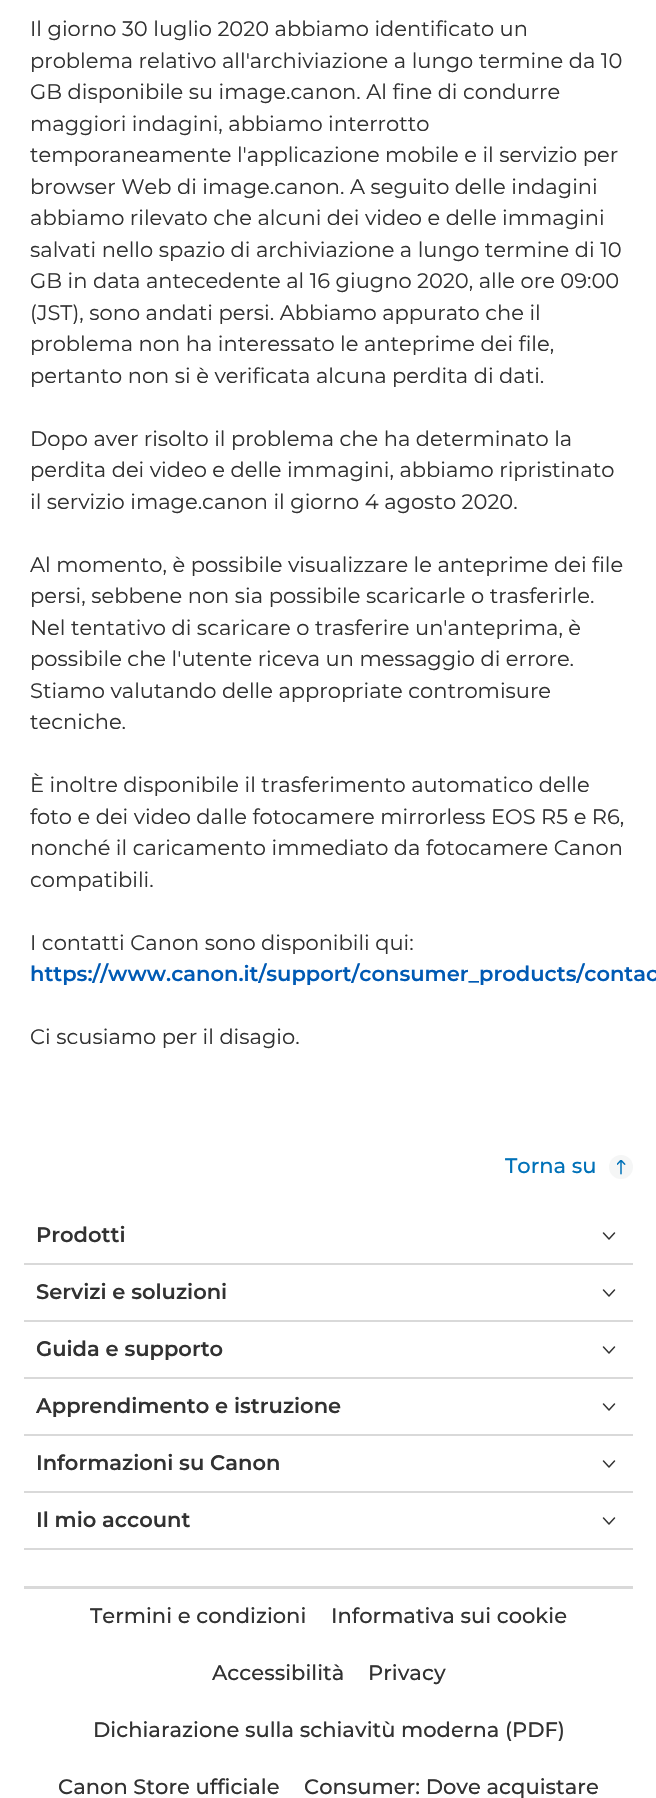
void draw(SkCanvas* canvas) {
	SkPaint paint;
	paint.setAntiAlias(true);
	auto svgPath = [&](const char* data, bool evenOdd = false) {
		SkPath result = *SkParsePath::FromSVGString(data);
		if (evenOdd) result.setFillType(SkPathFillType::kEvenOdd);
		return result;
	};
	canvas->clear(0xffffffff);
	SkFont f1(fontMgr->matchFamilyStyle("Montserrat", SkFontStyle::Normal()), 21);
	f1.setSubpixel(true);
	paint.setColor(0xff323232);
	canvas->drawString("Il giorno 30 luglio 2020 abbiamo identificato un", 30, 36, f1, paint);
	canvas->drawString("problema relativo all'archiviazione a lungo termine da 10", 30, 68, f1, paint);
	canvas->drawString("GB disponibile su image.canon. Al fine di condurre", 30, 99, f1, paint);
	canvas->drawString("maggiori indagini, abbiamo interrotto", 30, 131, f1, paint);
	canvas->drawString("temporaneamente l'applicazione mobile e il servizio per", 30, 162, f1, paint);
	canvas->drawString("browser Web di image.canon. A seguito delle indagini", 30, 194, f1, paint);
	canvas->drawString("abbiamo rilevato che alcuni dei video e delle immagini", 30, 225, f1, paint);
	canvas->drawString("salvati nello spazio di archiviazione a lungo termine di 10", 30, 257, f1, paint);
	canvas->drawString("GB in data antecedente al 16 giugno 2020, alle ore 09:00", 30, 288, f1, paint);
	canvas->drawString("(JST), sono andati persi. Abbiamo appurato che il", 30, 320, f1, paint);
	canvas->drawString("problema non ha interessato le anteprime dei file,", 30, 351, f1, paint);
	canvas->drawString("pertanto non si è verificata alcuna perdita di dati.", 30, 383, f1, paint);
	canvas->drawString("Dopo aver risolto il problema che ha determinato la", 30, 446, f1, paint);
	canvas->drawString("perdita dei video e delle immagini, abbiamo ripristinato", 30, 477, f1, paint);
	canvas->drawString("il servizio image.canon il giorno 4 agosto 2020.", 30, 509, f1, paint);
	canvas->drawString("Al momento, è possibile visualizzare le anteprime dei file", 30, 572, f1, paint);
	canvas->drawString("persi, sebbene non sia possibile scaricarle o trasferirle.", 30, 603, f1, paint);
	canvas->drawString("Nel tentativo di scaricare o trasferire un'anteprima, è", 30, 635, f1, paint);
	canvas->drawString("possibile che l'utente riceva un messaggio di errore.", 30, 666, f1, paint);
	canvas->drawString("Stiamo valutando delle appropriate contromisure", 30, 698, f1, paint);
	canvas->drawString("tecniche.", 30, 729, f1, paint);
	canvas->drawString("È inoltre disponibile il trasferimento automatico delle", 30, 792, f1, paint);
	canvas->drawString("foto e dei video dalle fotocamere mirrorless EOS R5 e R6,", 30, 824, f1, paint);
	canvas->drawString("nonché il caricamento immediato da fotocamere Canon", 30, 855, f1, paint);
	canvas->drawString("compatibili.", 30, 887, f1, paint);
	canvas->drawString("I contatti Canon sono disponibili qui:", 30, 950, f1, paint);
	SkFont f2(fontMgr->matchFamilyStyle("Montserrat", SkFontStyle(600, SkFontStyle::kNormal_Width, SkFontStyle::kUpright_Slant)), 21);
	f2.setSubpixel(true);
	paint.setColor(0xff005ab4);
	canvas->drawString("https://www.canon.it/support/consumer_products/contac", 30, 981, f2, paint);
	paint.setColor(0xff323232);
	canvas->drawString("Ci scusiamo per il disagio.", 30, 1044, f1, paint);
	SkFont f3(fontMgr->matchFamilyStyle("Montserrat", SkFontStyle(500, SkFontStyle::kNormal_Width, SkFontStyle::kUpright_Slant)), 21);
	f3.setSubpixel(true);
	paint.setColor(0xff0071b8);
	canvas->drawString("Torna su", 505, 1173, f3, paint);
	paint.setColor(0xfff5f6f6);
	canvas->drawCircle(621, 1167, 12, paint);
	canvas->drawImageRect(SkImages::DeferredFromEncodedData(SkData::MakeFromFileName("img1.png")), SkRect::MakeXYWH(617, 1160, 9, 15), SkSamplingOptions());
	paint.setColor(0xffd9d9d9);
	canvas->drawRect(SkRect::MakeXYWH(24, 1263, 609, 2), paint);
	paint.setColor(0xff323232);
	canvas->drawString("Prodotti", 36, 1242, f2, paint);
	paint.setStroke(true);
	paint.setStrokeWidth(1.5);
	paint.setStrokeCap(SkPaint::kRound_Cap);
	paint.setStrokeJoin(SkPaint::kRound_Join);
	canvas->drawPath(svgPath("M614.5 1233L609 1239L603.5 1233"), paint);
	paint.setStroke(false);
	paint.setColor(0xffd9d9d9);
	canvas->drawRect(SkRect::MakeXYWH(24, 1320, 609, 2), paint);
	paint.setColor(0xff323232);
	canvas->drawString("Servizi e soluzioni", 36, 1299, f2, paint);
	paint.setStroke(true);
	canvas->drawPath(svgPath("M614.5 1290L609 1296L603.5 1290"), paint);
	paint.setStroke(false);
	paint.setColor(0xffd9d9d9);
	canvas->drawRect(SkRect::MakeXYWH(24, 1377, 609, 2), paint);
	paint.setColor(0xff323232);
	canvas->drawString("Guida e supporto", 36, 1356, f2, paint);
	paint.setStroke(true);
	canvas->drawPath(svgPath("M614.5 1347L609 1353L603.5 1347"), paint);
	paint.setStroke(false);
	paint.setColor(0xffd9d9d9);
	canvas->drawRect(SkRect::MakeXYWH(24, 1434, 609, 2), paint);
	paint.setColor(0xff323232);
	canvas->drawString("Apprendimento e istruzione", 36, 1413, f2, paint);
	paint.setStroke(true);
	canvas->drawPath(svgPath("M614.5 1404L609 1410L603.5 1404"), paint);
	paint.setStroke(false);
	paint.setColor(0xffd9d9d9);
	canvas->drawRect(SkRect::MakeXYWH(24, 1491, 609, 2), paint);
	paint.setColor(0xff323232);
	canvas->drawString("Informazioni su Canon", 36, 1470, f2, paint);
	paint.setStroke(true);
	canvas->drawPath(svgPath("M614.5 1461L609 1467L603.5 1461"), paint);
	paint.setStroke(false);
	paint.setColor(0xffd9d9d9);
	canvas->drawRect(SkRect::MakeXYWH(24, 1548, 609, 2), paint);
	paint.setColor(0xff323232);
	canvas->drawString("Il mio account", 36, 1527, f2, paint);
	paint.setStroke(true);
	canvas->drawPath(svgPath("M614.5 1518L609 1524L603.5 1518"), paint);
	paint.setStroke(false);
	paint.setColor(0xffd9d9d9);
	canvas->drawRect(SkRect::MakeXYWH(24, 1586, 609, 3), paint);
	paint.setColor(0xff323232);
	canvas->drawString("Termini e condizioni", 90, 1623, f3, paint);
	canvas->drawString("Informativa sui cookie", 331, 1623, f3, paint);
	canvas->drawString("Accessibilità", 212, 1680, f3, paint);
	canvas->drawString("Privacy", 368, 1680, f3, paint);
	canvas->drawString("Dichiarazione sulla schiavitù moderna (PDF)", 93, 1737, f3, paint);
	canvas->drawString("Canon Store ufficiale", 58, 1794, f3, paint);
	canvas->drawString("Consumer: Dove acquistare", 304, 1794, f3, paint);
}
